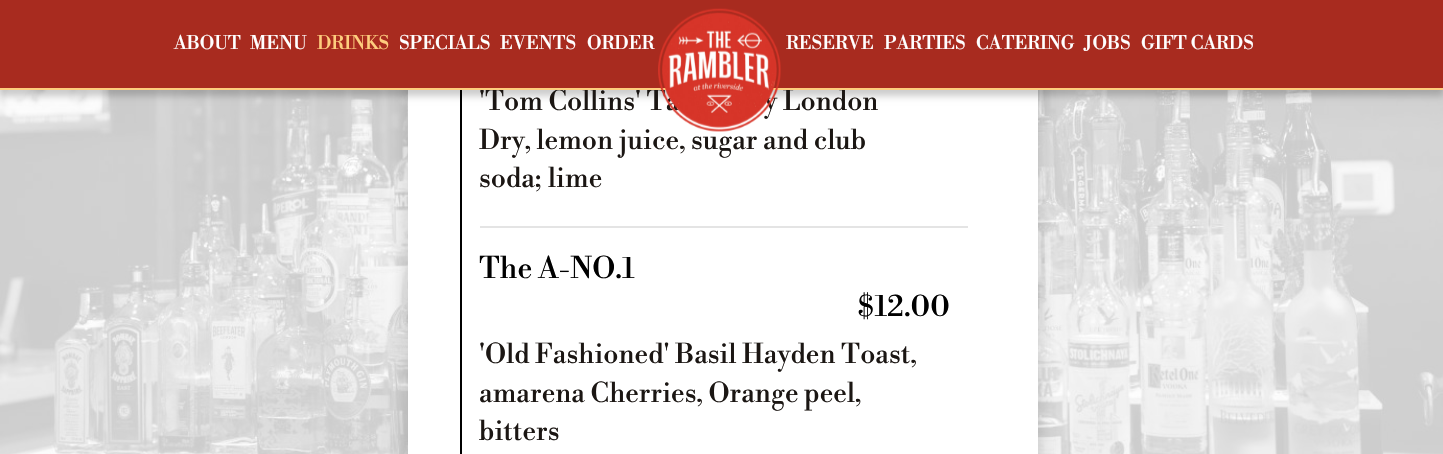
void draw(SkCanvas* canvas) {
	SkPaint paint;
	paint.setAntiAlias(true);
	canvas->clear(0xffffffff);
	canvas->drawImageRect(SkImages::DeferredFromEncodedData(SkData::MakeFromFileName("img2.png")), SkRect::MakeXYWH(0, 90, 1443, 364), SkSamplingOptions());
	paint.setColor(0x33000000);
	paint.setMaskFilter(SkMaskFilter::MakeBlur(kNormal_SkBlurStyle, 9));
	canvas->drawRect(SkRect::MakeXYWH(408, -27, 630, 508), paint);
	paint.setMaskFilter(nullptr);
	paint.setColor(0xffffffff);
	canvas->drawRect(SkRect::MakeXYWH(408, 90, 630, 364), paint);
	paint.setColor(0xff000000);
	canvas->drawRect(SkRect::MakeXYWH(460, 90, 2, 364), paint);
	paint.setColor(0x33000000);
	paint.setMaskFilter(SkMaskFilter::MakeBlur(kNormal_SkBlurStyle, 3.5));
	canvas->drawRect(SkRect::MakeXYWH(0, 7, 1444, 89), paint);
	paint.setMaskFilter(nullptr);
	paint.setColor(0xffa82b1f);
	canvas->drawRect(SkRect::MakeXYWH(0, 0, 1443, 88), paint);
	SkFont f1(fontMgr->matchFamilyStyle("Libre Bodoni", SkFontStyle::Normal()), 27);
	f1.setSubpixel(true);
	paint.setColor(0xff1b1613);
	canvas->drawString("'Tom Collins' Ta", 479, 110, f1, paint);
	canvas->drawString("y London", 764, 110, f1, paint);
	paint.setColor(0xfffecd7e);
	canvas->drawRect(SkRect::MakeXYWH(0, 88, 1443, 2), paint);
	SkFont f2(fontMgr->matchFamilyStyle("Libre Bodoni", SkFontStyle::Normal()), 18.5);
	f2.setSubpixel(true);
	paint.setColor(0xffffffff);
	canvas->drawString("ABOUT", 174, 49, f2, paint);
	canvas->drawString("MENU", 250, 49, f2, paint);
	paint.setColor(0xfffecd7e);
	canvas->drawString("DRINKS", 317, 49, f2, paint);
	paint.setColor(0xffffffff);
	canvas->drawString("SPECIALS", 399, 49, f2, paint);
	canvas->drawString("EVENTS", 500, 49, f2, paint);
	canvas->drawString("ORDER", 587, 49, f2, paint);
	paint.setColor(0xff1b1613);
	canvas->drawString("Dry, lemon juice, sugar and club", 479, 149, f1, paint);
	canvas->drawImageRect(SkImages::DeferredFromEncodedData(SkData::MakeFromFileName("img1.png")), SkRect::MakeXYWH(658, 8, 123, 124), SkSamplingOptions());
	paint.setColor(0xffffffff);
	canvas->drawString("RESERVE", 786, 49, f2, paint);
	canvas->drawString("PARTIES", 884, 49, f2, paint);
	canvas->drawString("CATERING", 976, 49, f2, paint);
	canvas->drawString("JOBS", 1084, 49, f2, paint);
	canvas->drawString("GIFT CARDS", 1141, 49, f2, paint);
	paint.setColor(0xffe4e4e4);
	canvas->drawRect(SkRect::MakeXYWH(480, 226, 488, 2), paint);
	paint.setColor(0xff1b1613);
	canvas->drawString("soda; lime", 479, 187, f1, paint);
	SkFont f3(fontMgr->matchFamilyStyle("Libre Bodoni", SkFontStyle::Normal()), 29.5);
	f3.setSubpixel(true);
	paint.setColor(0xff000000);
	canvas->drawString("The A-NO.1", 479, 278, f3, paint);
	canvas->drawString("$12.00", 858, 316, f3, paint);
	paint.setColor(0xff1b1613);
	canvas->drawString("'Old Fashioned' Basil Hayden Toast,", 479, 363, f1, paint);
	canvas->drawString("amarena Cherries, Orange peel,", 479, 402, f1, paint);
	canvas->drawString("bitters", 479, 440, f1, paint);
}
